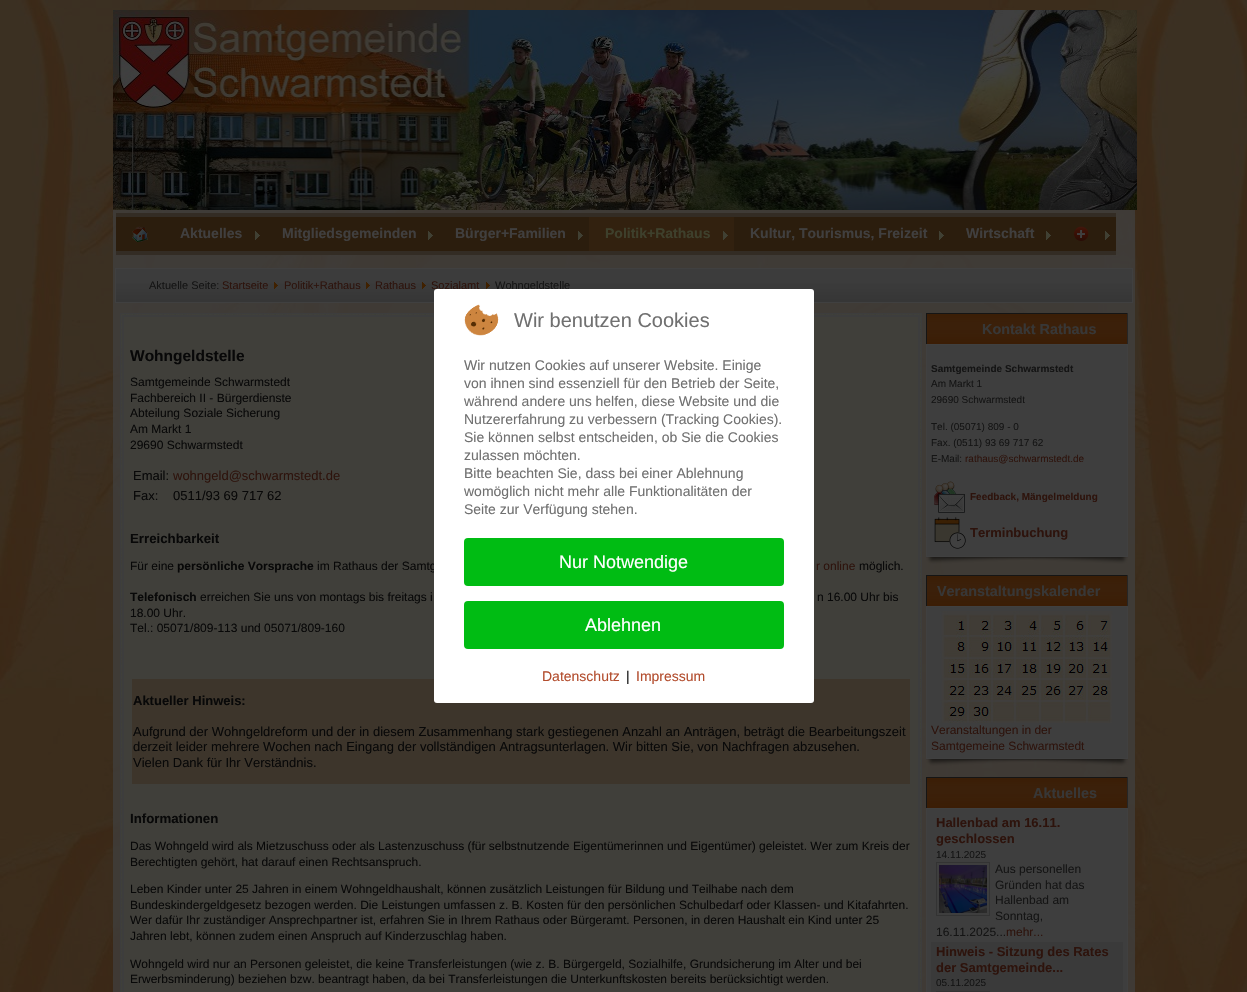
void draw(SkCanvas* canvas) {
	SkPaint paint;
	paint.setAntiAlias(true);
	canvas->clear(0xffffffff);
	canvas->drawImageRect(SkImages::DeferredFromEncodedData(SkData::MakeFromFileName("img1.png")), SkRect::MakeXYWH(0, 0, 1247, 992), SkSamplingOptions());
	paint.setColor(0xb3404040);
	canvas->drawRect(SkRect::MakeXYWH(113, 210, 1022, 782), paint);
	canvas->drawImageRect(SkImages::DeferredFromEncodedData(SkData::MakeFromFileName("img2.png")), SkRect::MakeXYWH(113, 10, 1024, 200), SkSamplingOptions());
	paint.setColor(0xff332c24);
	canvas->drawRect(SkRect::MakeXYWH(116, 213, 1000, 42), paint);
	paint.setColor(0xff2b1d0d);
	canvas->drawRect(SkRect::MakeXYWH(116, 217, 473, 34), paint);
	canvas->drawImageRect(SkImages::DeferredFromEncodedData(SkData::MakeFromFileName("img3.png")), SkRect::MakeXYWH(132, 226, 16, 16), SkSamplingOptions());
	canvas->drawRect(SkRect::MakeXYWH(734, 217, 382, 34), paint);
	canvas->drawImageRect(SkImages::DeferredFromEncodedData(SkData::MakeFromFileName("img4.png")), SkRect::MakeXYWH(1074, 226, 15, 15), SkSamplingOptions());
	canvas->drawImageRect(SkImages::DeferredFromEncodedData(SkData::MakeFromFileName("img5.png")), SkRect::MakeXYWH(1105, 231, 5, 9), SkSamplingOptions());
	SkFont f1(fontMgr->matchFamilyStyle("Liberation Sans", SkFontStyle::Bold()), 14);
	f1.setSubpixel(true);
	paint.setColor(0xff403f3f);
	canvas->drawString("Aktuelles", 180, 238, f1, paint);
	canvas->drawImageRect(SkImages::DeferredFromEncodedData(SkData::MakeFromFileName("img5.png")), SkRect::MakeXYWH(255, 231, 5, 9), SkSamplingOptions());
	canvas->drawString("Mitgliedsgemeinden", 282, 238, f1, paint);
	canvas->drawImageRect(SkImages::DeferredFromEncodedData(SkData::MakeFromFileName("img5.png")), SkRect::MakeXYWH(428, 231, 5, 9), SkSamplingOptions());
	canvas->drawString("Bürger+Familien", 455, 238, f1, paint);
	canvas->drawImageRect(SkImages::DeferredFromEncodedData(SkData::MakeFromFileName("img5.png")), SkRect::MakeXYWH(578, 231, 5, 9), SkSamplingOptions());
	paint.setColor(0xff32210f);
	canvas->drawRect(SkRect::MakeXYWH(589, 217, 145, 34), paint);
	paint.setColor(0xff3e402c);
	canvas->drawString("Politik+Rathaus", 605, 238, f1, paint);
	canvas->drawImageRect(SkImages::DeferredFromEncodedData(SkData::MakeFromFileName("img6.png")), SkRect::MakeXYWH(723, 231, 5, 9), SkSamplingOptions());
	paint.setColor(0xff403f3f);
	canvas->drawString("Kultur, Tourismus, Freizeit", 750, 238, f1, paint);
	canvas->drawImageRect(SkImages::DeferredFromEncodedData(SkData::MakeFromFileName("img5.png")), SkRect::MakeXYWH(939, 231, 5, 9), SkSamplingOptions());
	canvas->drawString("Wirtschaft", 966, 238, f1, paint);
	canvas->drawImageRect(SkImages::DeferredFromEncodedData(SkData::MakeFromFileName("img5.png")), SkRect::MakeXYWH(1046, 231, 5, 9), SkSamplingOptions());
	paint.setColor(0xff3c3c3c);
	canvas->drawRect(SkRect::MakeXYWH(116, 269, 1016, 33), paint);
	canvas->drawImageRect(SkImages::DeferredFromEncodedData(SkData::MakeFromFileName("img7.png")), SkRect::MakeXYWH(116, 283, 1016, 19), SkSamplingOptions());
	paint.setStroke(true);
	paint.setStrokeWidth(1);
	paint.setColor(0xff404040);
	canvas->drawRect(SkRect::MakeXYWH(115.5, 268.5, 1017, 34), paint);
	SkFont f2(fontMgr->matchFamilyStyle("Liberation Sans", SkFontStyle::Normal()), 11);
	f2.setSubpixel(true);
	paint.setStroke(false);
	paint.setColor(0xff141414);
	canvas->drawString("Aktuelle Seite:", 149, 289, f2, paint);
	paint.setColor(0xff2d130c);
	canvas->drawString("Startseite", 222, 289, f2, paint);
	canvas->drawImageRect(SkImages::DeferredFromEncodedData(SkData::MakeFromFileName("img8.png")), SkRect::MakeXYWH(274, 282, 4, 7), SkSamplingOptions());
	canvas->drawString("Politik+Rathaus", 284, 289, f2, paint);
	canvas->drawImageRect(SkImages::DeferredFromEncodedData(SkData::MakeFromFileName("img8.png")), SkRect::MakeXYWH(366, 282, 4, 7), SkSamplingOptions());
	canvas->drawString("Rathaus", 375, 289, f2, paint);
	canvas->drawImageRect(SkImages::DeferredFromEncodedData(SkData::MakeFromFileName("img8.png")), SkRect::MakeXYWH(422, 282, 4, 7), SkSamplingOptions());
	canvas->drawString("Sozialamt", 431, 289, f2, paint);
	canvas->drawImageRect(SkImages::DeferredFromEncodedData(SkData::MakeFromFileName("img8.png")), SkRect::MakeXYWH(486, 282, 4, 7), SkSamplingOptions());
	paint.setColor(0xff141414);
	canvas->drawString("Wohngeldstelle", 495, 289, f2, paint);
	paint.setColor(0xff403f3a);
	canvas->drawRect(SkRect::MakeXYWH(121, 314, 800, 678), paint);
	canvas->drawImageRect(SkImages::DeferredFromEncodedData(SkData::MakeFromFileName("img9.png")), SkRect::MakeXYWH(121, 314, 800, 678), SkSamplingOptions());
	paint.setStroke(true);
	paint.setColor(0xff3d3d3d);
	canvas->drawRect(SkRect::MakeXYWH(120.5, 313.5, 801, 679), paint);
	canvas->drawRect(SkRect::MakeXYWH(122.5, 315.5, 797, 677), paint);
	paint.setStroke(false);
	paint.setColor(0xff403f3a);
	canvas->drawRect(SkRect::MakeXYWH(123.5, 316.5, 795, 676), paint);
	paint.setStroke(true);
	paint.setColor(0xff3d3d3d);
	canvas->drawRect(SkRect::MakeXYWH(123.5, 316.5, 795, 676), paint);
	SkFont f3(fontMgr->matchFamilyStyle("Liberation Sans", SkFontStyle::Bold()), 15.5);
	f3.setSubpixel(true);
	paint.setStroke(false);
	paint.setColor(0xff080808);
	canvas->drawString("Wohngeldstelle", 130, 361, f3, paint);
	SkFont f4(fontMgr->matchFamilyStyle("Liberation Sans", SkFontStyle::Normal()), 12);
	f4.setSubpixel(true);
	canvas->drawString("Samtgemeinde Schwarmstedt", 130, 386, f4, paint);
	canvas->drawString("Fachbereich II - Bürgerdienste", 130, 402, f4, paint);
	canvas->drawString("Abteilung Soziale Sicherung", 130, 417, f4, paint);
	canvas->drawString("Am Markt 1", 130, 433, f4, paint);
	canvas->drawString("29690 Schwarmstedt", 130, 449, f4, paint);
	SkFont f5(fontMgr->matchFamilyStyle("Liberation Sans", SkFontStyle::Normal()), 13);
	f5.setSubpixel(true);
	canvas->drawString("Email:", 133, 480, f5, paint);
	paint.setColor(0xff2d130c);
	canvas->drawString("wohngeld@schwarmstedt.de", 173, 480, f5, paint);
	paint.setColor(0xff080808);
	canvas->drawString("Fax:", 133, 500, f5, paint);
	canvas->drawString("0511/93 69 717 62", 173, 500, f5, paint);
	SkFont f6(fontMgr->matchFamilyStyle("Liberation Sans", SkFontStyle::Bold()), 13.25);
	f6.setSubpixel(true);
	canvas->drawString("Erreichbarkeit", 130, 543, f6, paint);
	canvas->drawString("Für eine", 130, 570, f4, paint);
	SkFont f7(fontMgr->matchFamilyStyle("Liberation Sans", SkFontStyle::Bold()), 12);
	f7.setSubpixel(true);
	canvas->drawString("persönliche Vorsprache", 177, 570, f7, paint);
	canvas->drawString("im Rathaus der Samtg", 317, 570, f4, paint);
	paint.setColor(0xff2d130c);
	canvas->drawString("r online", 816, 570, f4, paint);
	paint.setColor(0xff080808);
	canvas->drawString("möglich.", 859, 570, f4, paint);
	canvas->drawString("Telefonisch", 130, 601, f7, paint);
	canvas->drawString("erreichen Sie uns von montags bis freitags i", 200, 601, f4, paint);
	canvas->drawString("n 16.00 Uhr bis", 817, 601, f4, paint);
	canvas->drawString("18.00 Uhr.", 130, 617, f4, paint);
	canvas->drawString("Tel.: 05071/809-113 und 05071/809-160", 130, 632, f4, paint);
	paint.setColor(0xff3d352b);
	canvas->drawRect(SkRect::MakeXYWH(132, 679, 778, 105), paint);
	SkFont f8(fontMgr->matchFamilyStyle("Liberation Sans", SkFontStyle::Bold()), 13);
	f8.setSubpixel(true);
	paint.setColor(0xff080808);
	canvas->drawString("Aktueller Hinweis:", 133, 705, f8, paint);
	canvas->drawString("Aufgrund der Wohngeldreform und der in diesem Zusammenhang stark gestiegenen Anzahl an Anträgen, beträgt die Bearbeitungszeit", 133, 736, f5, paint);
	canvas->drawString("derzeit leider mehrere Wochen nach Eingang der vollständigen Antragsunterlagen. Wir bitten Sie, von Nachfragen abzusehen.", 133, 751, f5, paint);
	canvas->drawString("Vielen Dank für Ihr Verständnis.", 133, 767, f5, paint);
	canvas->drawString("Informationen", 130, 823, f6, paint);
	canvas->drawString("Das Wohngeld wird als Mietzuschuss oder als Lastenzuschuss (für selbstnutzende Eigentümerinnen und Eigentümer) geleistet. Wer zum Kreis der", 130, 850, f4, paint);
	canvas->drawString("Berechtigten gehört, hat darauf einen Rechtsanspruch.", 130, 866, f4, paint);
	canvas->drawString("Leben Kinder unter 25 Jahren in einem Wohngeldhaushalt, können zusätzlich Leistungen für Bildung und Teilhabe nach dem", 130, 893, f4, paint);
	canvas->drawString("Bundeskindergeldgesetz bezogen werden. Die Leistungen umfassen z. B. Kosten für den persönlichen Schulbedarf oder Klassen- und Kitafahrten.", 130, 909, f4, paint);
	canvas->drawString("Wer dafür Ihr zuständiger Ansprechpartner ist, erfahren Sie in Ihrem Rathaus oder Bürgeramt. Personen, in deren Haushalt ein Kind unter 25", 130, 924, f4, paint);
	canvas->drawString("Jahren lebt, können zudem einen Anspruch auf Kinderzuschlag haben.", 130, 940, f4, paint);
	canvas->drawString("Wohngeld wird nur an Personen geleistet, die keine Transferleistungen (wie z. B. Bürgergeld, Sozialhilfe, Grundsicherung im Alter und bei", 130, 968, f4, paint);
	canvas->drawString("Erwerbsminderung) beziehen bzw. beantragt haben, da bei Transferleistungen die Unterkunftskosten bereits berücksichtigt werden.", 130, 983, f4, paint);
	paint.setColor(0xff3a1b02);
	canvas->drawRect(SkRect::MakeXYWH(927, 314, 200, 30), paint);
	canvas->drawImageRect(SkImages::DeferredFromEncodedData(SkData::MakeFromFileName("img10.png")), SkRect::MakeXYWH(927, 314, 200, 30), SkSamplingOptions());
	paint.setColor(0xff151515);
	canvas->drawRect(SkRect::MakeXYWH(926, 313, 202, 1), paint);
	paint.setColor(0xff262626);
	canvas->drawRect(SkRect::MakeXYWH(1127, 313, 1, 31), paint);
	paint.setColor(0xff151515);
	canvas->drawRect(SkRect::MakeXYWH(926, 313, 1, 31), paint);
	SkFont f9(fontMgr->matchFamilyStyle("Liberation Sans", SkFontStyle::Bold()), 14.4);
	f9.setSubpixel(true);
	paint.setColor(0xff373737);
	canvas->drawString("Kontakt Rathaus", 982, 334, f9, paint);
	paint.setStroke(true);
	paint.setColor(0xff404040);
	canvas->drawRect(SkRect::MakeXYWH(926.5, 344.5, 201, 212), paint);
	paint.setStroke(false);
	paint.setColor(0xff3e3e3e);
	canvas->drawRect(SkRect::MakeXYWH(927, 345, 200, 211), paint);
	SkFont f10(fontMgr->matchFamilyStyle("Liberation Sans", SkFontStyle::Bold()), 10);
	f10.setSubpixel(true);
	paint.setColor(0xff141414);
	canvas->drawString("Samtgemeinde Schwarmstedt", 931, 372, f10, paint);
	SkFont f11(fontMgr->matchFamilyStyle("Liberation Sans", SkFontStyle::Normal()), 10);
	f11.setSubpixel(true);
	canvas->drawString("Am Markt 1", 931, 387, f11, paint);
	canvas->drawString("29690 Schwarmstedt", 931, 403, f11, paint);
	canvas->drawString("Tel. (05071) 809 - 0", 931, 430, f11, paint);
	canvas->drawString("Fax. (0511) 93 69 717 62", 931, 446, f11, paint);
	canvas->drawString("E-Mail:", 931, 462, f11, paint);
	paint.setColor(0xff2d130c);
	canvas->drawString("rathaus@schwarmstedt.de", 965, 462, f11, paint);
	canvas->drawImageRect(SkImages::DeferredFromEncodedData(SkData::MakeFromFileName("img11.png")), SkRect::MakeXYWH(934, 481, 31, 32), SkSamplingOptions());
	canvas->drawString("Feedback, Mängelmeldung", 970, 500, f10, paint);
	canvas->drawImageRect(SkImages::DeferredFromEncodedData(SkData::MakeFromFileName("img12.png")), SkRect::MakeXYWH(934, 517, 32, 32), SkSamplingOptions());
	canvas->drawString("Terminbuchung", 970, 537, f8, paint);
	canvas->drawImageRect(SkImages::DeferredFromEncodedData(SkData::MakeFromFileName("img13.png")), SkRect::MakeXYWH(926, 557, 202, 7), SkSamplingOptions());
	canvas->drawImageRect(SkImages::DeferredFromEncodedData(SkData::MakeFromFileName("img14.png")), SkRect::MakeXYWH(926, 557, 202, 7), SkSamplingOptions());
	paint.setColor(0xff3a1b02);
	canvas->drawRect(SkRect::MakeXYWH(927, 576, 200, 30), paint);
	canvas->drawImageRect(SkImages::DeferredFromEncodedData(SkData::MakeFromFileName("img10.png")), SkRect::MakeXYWH(927, 576, 200, 30), SkSamplingOptions());
	paint.setColor(0xff151515);
	canvas->drawRect(SkRect::MakeXYWH(926, 575, 202, 1), paint);
	paint.setColor(0xff262626);
	canvas->drawRect(SkRect::MakeXYWH(1127, 575, 1, 31), paint);
	paint.setColor(0xff151515);
	canvas->drawRect(SkRect::MakeXYWH(926, 575, 1, 31), paint);
	paint.setColor(0xff373737);
	canvas->drawString("Veranstaltungskalender", 937, 596, f9, paint);
	paint.setStroke(true);
	paint.setColor(0xff404040);
	canvas->drawRect(SkRect::MakeXYWH(926.5, 606.5, 201, 152), paint);
	paint.setStroke(false);
	paint.setColor(0xff3e3e3e);
	canvas->drawRect(SkRect::MakeXYWH(927, 607, 200, 151), paint);
	canvas->drawImageRect(SkImages::DeferredFromEncodedData(SkData::MakeFromFileName("img15.png")), SkRect::MakeXYWH(940, 611, 173, 112), SkSamplingOptions());
	paint.setColor(0xff2d130c);
	canvas->drawString("Veranstaltungen in der", 931, 734, f4, paint);
	canvas->drawString("Samtgemeine Schwarmstedt", 931, 750, f4, paint);
	canvas->drawImageRect(SkImages::DeferredFromEncodedData(SkData::MakeFromFileName("img16.png")), SkRect::MakeXYWH(926, 759, 202, 7), SkSamplingOptions());
	canvas->drawImageRect(SkImages::DeferredFromEncodedData(SkData::MakeFromFileName("img17.png")), SkRect::MakeXYWH(926, 759, 202, 7), SkSamplingOptions());
	paint.setColor(0xff3a1b02);
	canvas->drawRect(SkRect::MakeXYWH(927, 778, 200, 30), paint);
	canvas->drawImageRect(SkImages::DeferredFromEncodedData(SkData::MakeFromFileName("img10.png")), SkRect::MakeXYWH(927, 778, 200, 30), SkSamplingOptions());
	paint.setColor(0xff151515);
	canvas->drawRect(SkRect::MakeXYWH(926, 777, 202, 1), paint);
	paint.setColor(0xff262626);
	canvas->drawRect(SkRect::MakeXYWH(1127, 777, 1, 31), paint);
	paint.setColor(0xff151515);
	canvas->drawRect(SkRect::MakeXYWH(926, 777, 1, 31), paint);
	paint.setColor(0xff373737);
	canvas->drawString("Aktuelles", 1033, 798, f9, paint);
	paint.setStroke(true);
	paint.setColor(0xff404040);
	canvas->drawRect(SkRect::MakeXYWH(926.5, 808.5, 201, 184), paint);
	paint.setStroke(false);
	paint.setColor(0xff3e3e3e);
	canvas->drawRect(SkRect::MakeXYWH(927, 809, 200, 183), paint);
	paint.setColor(0xff2d130c);
	canvas->drawString("Hallenbad am 16.11.", 936, 827, f8, paint);
	canvas->drawString("geschlossen", 936, 843, f8, paint);
	paint.setColor(0xff141414);
	canvas->drawString("14.11.2025", 936, 858, f11, paint);
	paint.setStroke(true);
	paint.setColor(0xff333333);
	canvas->drawRect(SkRect::MakeXYWH(936.5, 862.5, 53, 53), paint);
	canvas->drawImageRect(SkImages::DeferredFromEncodedData(SkData::MakeFromFileName("img18.png")), SkRect::MakeXYWH(939, 865, 48, 48), SkSamplingOptions());
	paint.setStroke(false);
	paint.setColor(0xff141414);
	canvas->drawString("Aus personellen", 995, 873, f4, paint);
	canvas->drawString("Gründen hat das", 995, 889, f4, paint);
	canvas->drawString("Hallenbad am", 995, 904, f4, paint);
	canvas->drawString("Sonntag,", 995, 920, f4, paint);
	canvas->drawString("16.11.2025...", 936, 936, f4, paint);
	paint.setColor(0xff2d130c);
	canvas->drawString("mehr...", 1006, 936, f4, paint);
	paint.setColor(0xff3a3a3a);
	canvas->drawRect(SkRect::MakeXYWH(931, 942, 192, 50), paint);
	paint.setColor(0xff2d130c);
	canvas->drawString("Hinweis - Sitzung des Rates", 936, 956, f8, paint);
	canvas->drawString("der Samtgemeinde...", 936, 972, f8, paint);
	paint.setColor(0xff141414);
	canvas->drawString("05.11.2025", 936, 986, f11, paint);
	paint.setStroke(true);
	paint.setColor(0xff333333);
	canvas->drawRect(SkRect::MakeXYWH(936.5, 991.5, 53, 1), paint);
	paint.setStroke(false);
	paint.setColor(0xffffffff);
	canvas->drawRoundRect(SkRect::MakeXYWH(434, 289, 380, 414), 3, 3, paint);
	canvas->drawImageRect(SkImages::DeferredFromEncodedData(SkData::MakeFromFileName("img19.png")), SkRect::MakeXYWH(464, 304, 35, 32), SkSamplingOptions());
	SkFont f12(fontMgr->matchFamilyStyle("Liberation Sans", SkFontStyle::Normal()), 20);
	f12.setSubpixel(true);
	paint.setColor(0xff707070);
	canvas->drawString("Wir benutzen Cookies", 514, 327, f12, paint);
	SkFont f13(fontMgr->matchFamilyStyle("Liberation Sans", SkFontStyle::Normal()), 14);
	f13.setSubpixel(true);
	canvas->drawString("Wir nutzen Cookies auf unserer Website. Einige", 464, 370, f13, paint);
	canvas->drawString("von ihnen sind essenziell für den Betrieb der Seite,", 464, 388, f13, paint);
	canvas->drawString("während andere uns helfen, diese Website und die", 464, 406, f13, paint);
	canvas->drawString("Nutzererfahrung zu verbessern (Tracking Cookies).", 464, 424, f13, paint);
	canvas->drawString("Sie können selbst entscheiden, ob Sie die Cookies", 464, 442, f13, paint);
	canvas->drawString("zulassen möchten.", 464, 460, f13, paint);
	canvas->drawString("Bitte beachten Sie, dass bei einer Ablehnung", 464, 478, f13, paint);
	canvas->drawString("womöglich nicht mehr alle Funktionalitäten der", 464, 496, f13, paint);
	canvas->drawString("Seite zur Verfügung stehen.", 464, 514, f13, paint);
	paint.setColor(0xff00bc13);
	canvas->drawRoundRect(SkRect::MakeXYWH(464, 538, 320, 48), 4, 4, paint);
	SkFont f14(fontMgr->matchFamilyStyle("Liberation Sans", SkFontStyle::Normal()), 18);
	f14.setSubpixel(true);
	paint.setColor(0xffffffff);
	canvas->drawString("Nur Notwendige", 559, 568, f14, paint);
	paint.setColor(0xff00bc13);
	canvas->drawRoundRect(SkRect::MakeXYWH(464, 601, 320, 48), 4, 4, paint);
	paint.setColor(0xffffffff);
	canvas->drawString("Ablehnen", 585, 631, f14, paint);
	paint.setColor(0xffb34d2e);
	canvas->drawString("Datenschutz", 542, 681, f13, paint);
	paint.setColor(0xff141414);
	canvas->drawString("|", 626, 681, f13, paint);
	paint.setColor(0xffb34d2e);
	canvas->drawString("Impressum", 636, 681, f13, paint);
}
